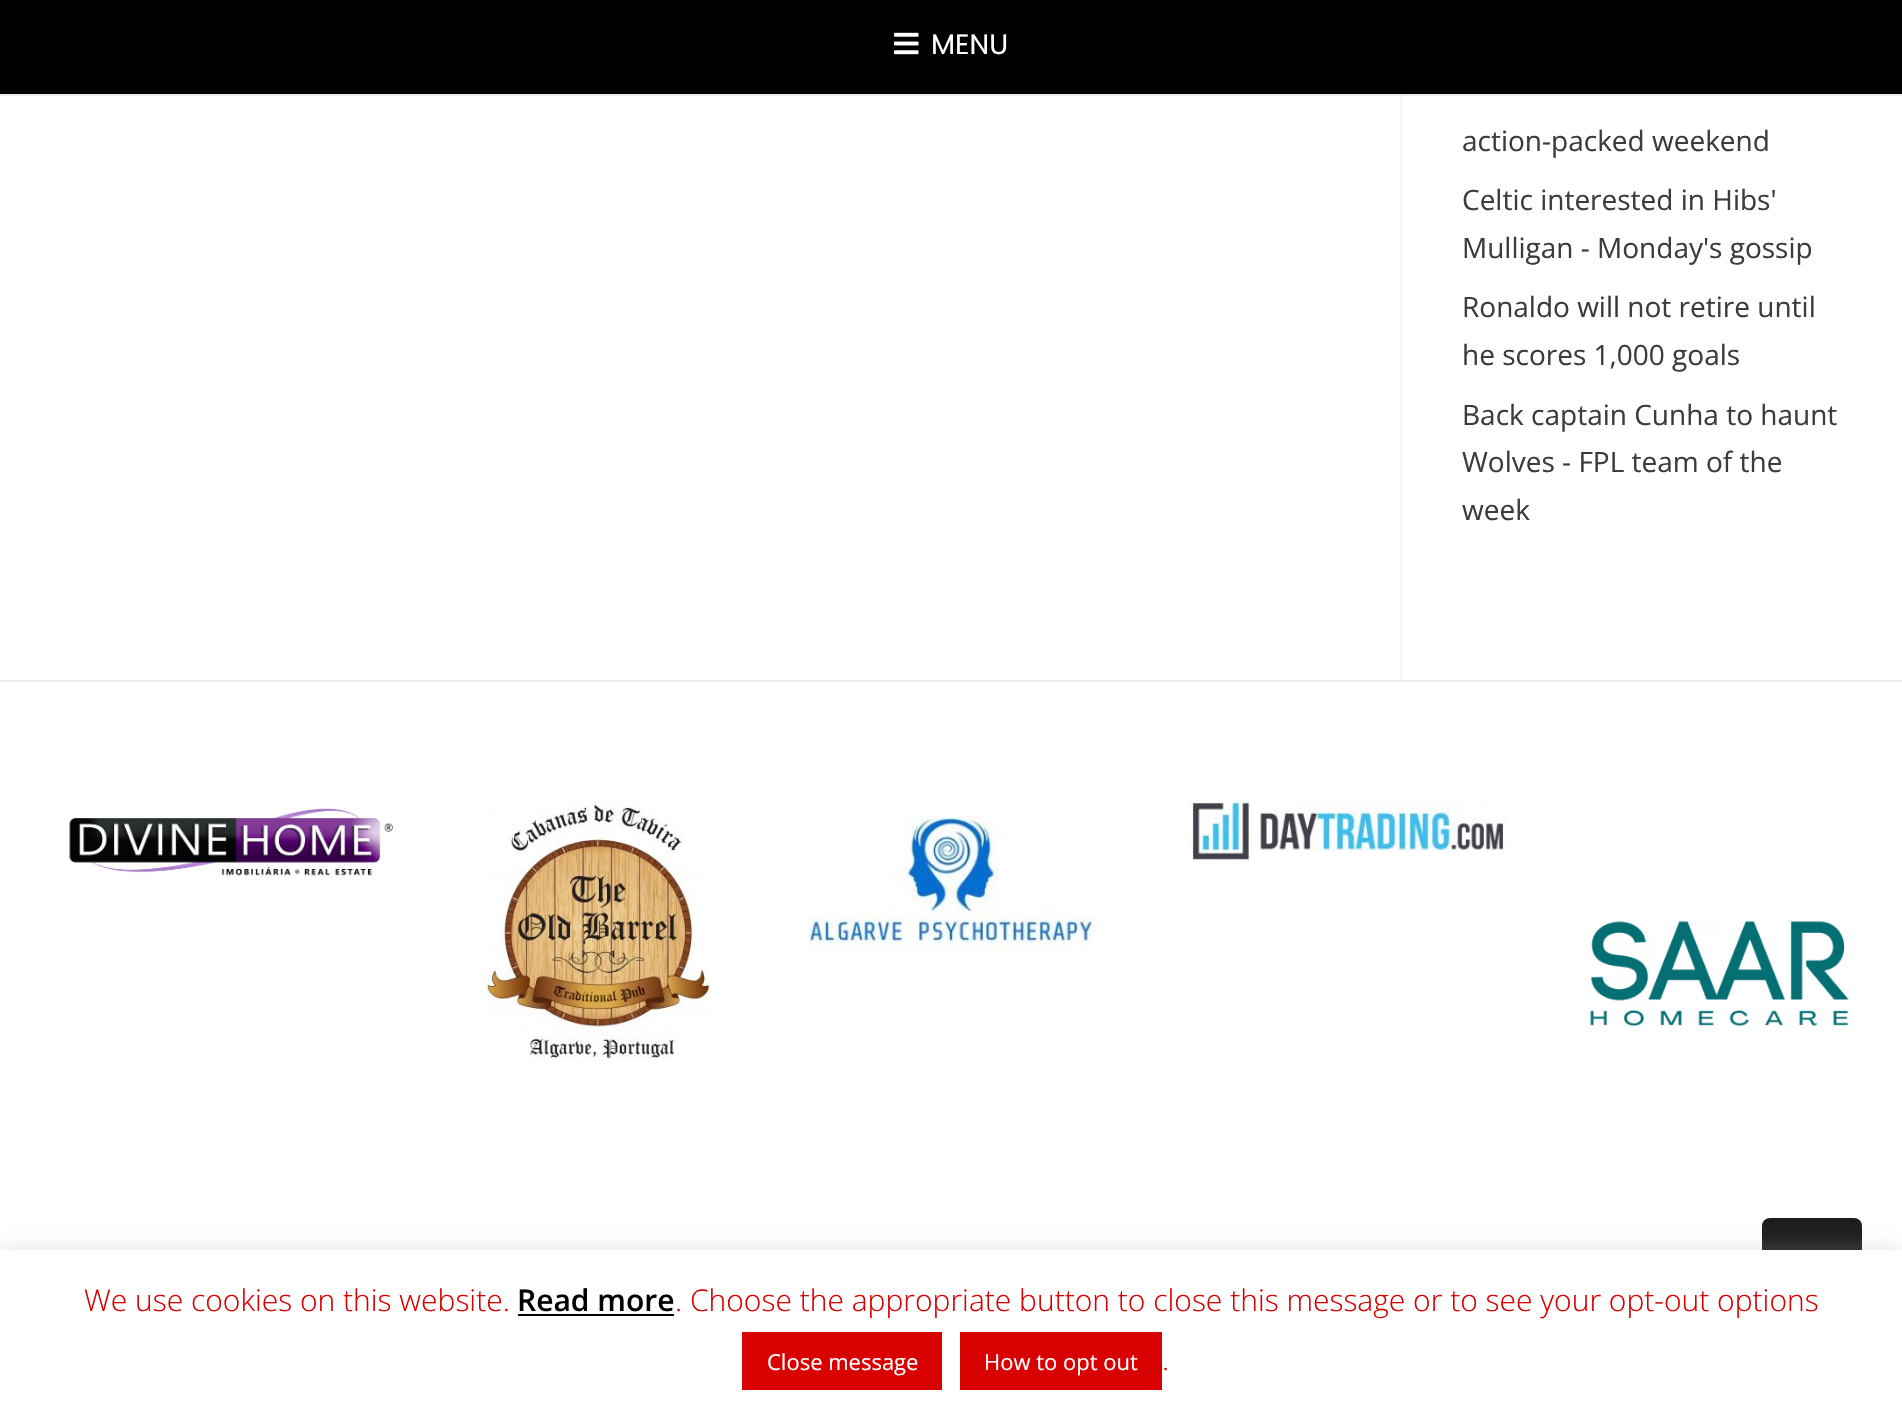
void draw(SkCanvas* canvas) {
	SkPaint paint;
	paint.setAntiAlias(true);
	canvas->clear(0xffffffff);
	paint.setColor(0xfff5f5f5);
	canvas->drawRect(SkRect::MakeXYWH(1400, 94, 2, 586), paint);
	paint.setColor(0x14000000);
	canvas->drawRect(SkRect::MakeXYWH(0, 94, 1902, 2), paint);
	paint.setColor(0xff000000);
	canvas->drawRect(SkRect::MakeXYWH(0, 0, 1902, 94), paint);
	canvas->drawImageRect(SkImages::DeferredFromEncodedData(SkData::MakeFromFileName("img1.png")), SkRect::MakeXYWH(894, 32, 25, 23), SkSamplingOptions());
	SkFont f1(fontMgr->matchFamilyStyle("Poppins", SkFontStyle::Normal()), 28);
	f1.setSubpixel(true);
	paint.setColor(0xffffffff);
	canvas->drawString("MENU", 931, 54, f1, paint);
	SkFont f2(fontMgr->matchFamilyStyle("Open Sans", SkFontStyle::Normal()), 28);
	f2.setSubpixel(true);
	paint.setColor(0xff3c3c3c);
	canvas->drawString("action-packed weekend", 1462, 151, f2, paint);
	canvas->drawString("Celtic interested in Hibs'", 1462, 210, f2, paint);
	canvas->drawString("Mulligan - Monday's gossip", 1462, 258, f2, paint);
	canvas->drawString("Ronaldo will not retire until", 1462, 317, f2, paint);
	canvas->drawString("he scores 1,000 goals", 1462, 365, f2, paint);
	canvas->drawString("Back captain Cunha to haunt", 1462, 425, f2, paint);
	canvas->drawString("Wolves - FPL team of the", 1462, 472, f2, paint);
	canvas->drawString("week", 1462, 520, f2, paint);
	paint.setColor(0xffe9e9e9);
	canvas->drawRect(SkRect::MakeXYWH(0, 680, 1902, 2), paint);
	canvas->drawImageRect(SkImages::DeferredFromEncodedData(SkData::MakeFromFileName("img2.png")), SkRect::MakeXYWH(69, 808, 324, 68), SkSamplingOptions());
	canvas->drawImageRect(SkImages::DeferredFromEncodedData(SkData::MakeFromFileName("img3.png")), SkRect::MakeXYWH(486, 801, 224, 258), SkSamplingOptions());
	canvas->drawImageRect(SkImages::DeferredFromEncodedData(SkData::MakeFromFileName("img4.png")), SkRect::MakeXYWH(808, 816, 290, 136), SkSamplingOptions());
	canvas->drawImageRect(SkImages::DeferredFromEncodedData(SkData::MakeFromFileName("img5.png")), SkRect::MakeXYWH(1190, 800, 316, 60), SkSamplingOptions());
	canvas->drawImageRect(SkImages::DeferredFromEncodedData(SkData::MakeFromFileName("img6.png")), SkRect::MakeXYWH(1590, 920, 259, 107), SkSamplingOptions());
	paint.setColor(0xff1d1d1d);
	canvas->drawRoundRect(SkRect::MakeXYWH(1762, 1218, 100, 96), 8, 8, paint);
	paint.setColor(0x4dacabab);
	paint.setMaskFilter(SkMaskFilter::MakeBlur(kNormal_SkBlurStyle, 10));
	canvas->drawRect(SkRect::MakeXYWH(0, 1248, 1902, 164), paint);
	paint.setMaskFilter(nullptr);
	paint.setColor(0xffffffff);
	canvas->drawRect(SkRect::MakeXYWH(0, 1250, 1902, 163), paint);
	SkFont f3(fontMgr->matchFamilyStyle("Open Sans", SkFontStyle(300, SkFontStyle::kNormal_Width, SkFontStyle::kUpright_Slant)), 30);
	f3.setSubpixel(true);
	paint.setColor(0xffd80000);
	canvas->drawString("We use cookies on this website.", 84, 1311, f3, paint);
	SkFont f4(fontMgr->matchFamilyStyle("Open Sans", SkFontStyle(600, SkFontStyle::kNormal_Width, SkFontStyle::kUpright_Slant)), 30);
	f4.setSubpixel(true);
	paint.setColor(0xff000000);
	canvas->drawString("Read more", 517, 1311, f4, paint);
	canvas->drawRect(SkRect::MakeXYWH(518, 1314, 156, 2), paint);
	paint.setColor(0xffd80000);
	canvas->drawString(". Choose the appropriate button to close this message or to see your opt-out options", 675, 1311, f3, paint);
	canvas->drawRect(SkRect::MakeXYWH(742, 1332, 200, 58), paint);
	SkFont f5(fontMgr->matchFamilyStyle("Open Sans", SkFontStyle::Normal()), 22);
	f5.setSubpixel(true);
	paint.setColor(0xffffffff);
	canvas->drawString("Close message", 767, 1370, f5, paint);
	paint.setColor(0xffd80000);
	canvas->drawRect(SkRect::MakeXYWH(960, 1332, 202, 58), paint);
	paint.setColor(0xffffffff);
	canvas->drawString("How to opt out", 984, 1370, f5, paint);
	paint.setColor(0xffd80000);
	canvas->drawString(".", 1162, 1370, f3, paint);
}
